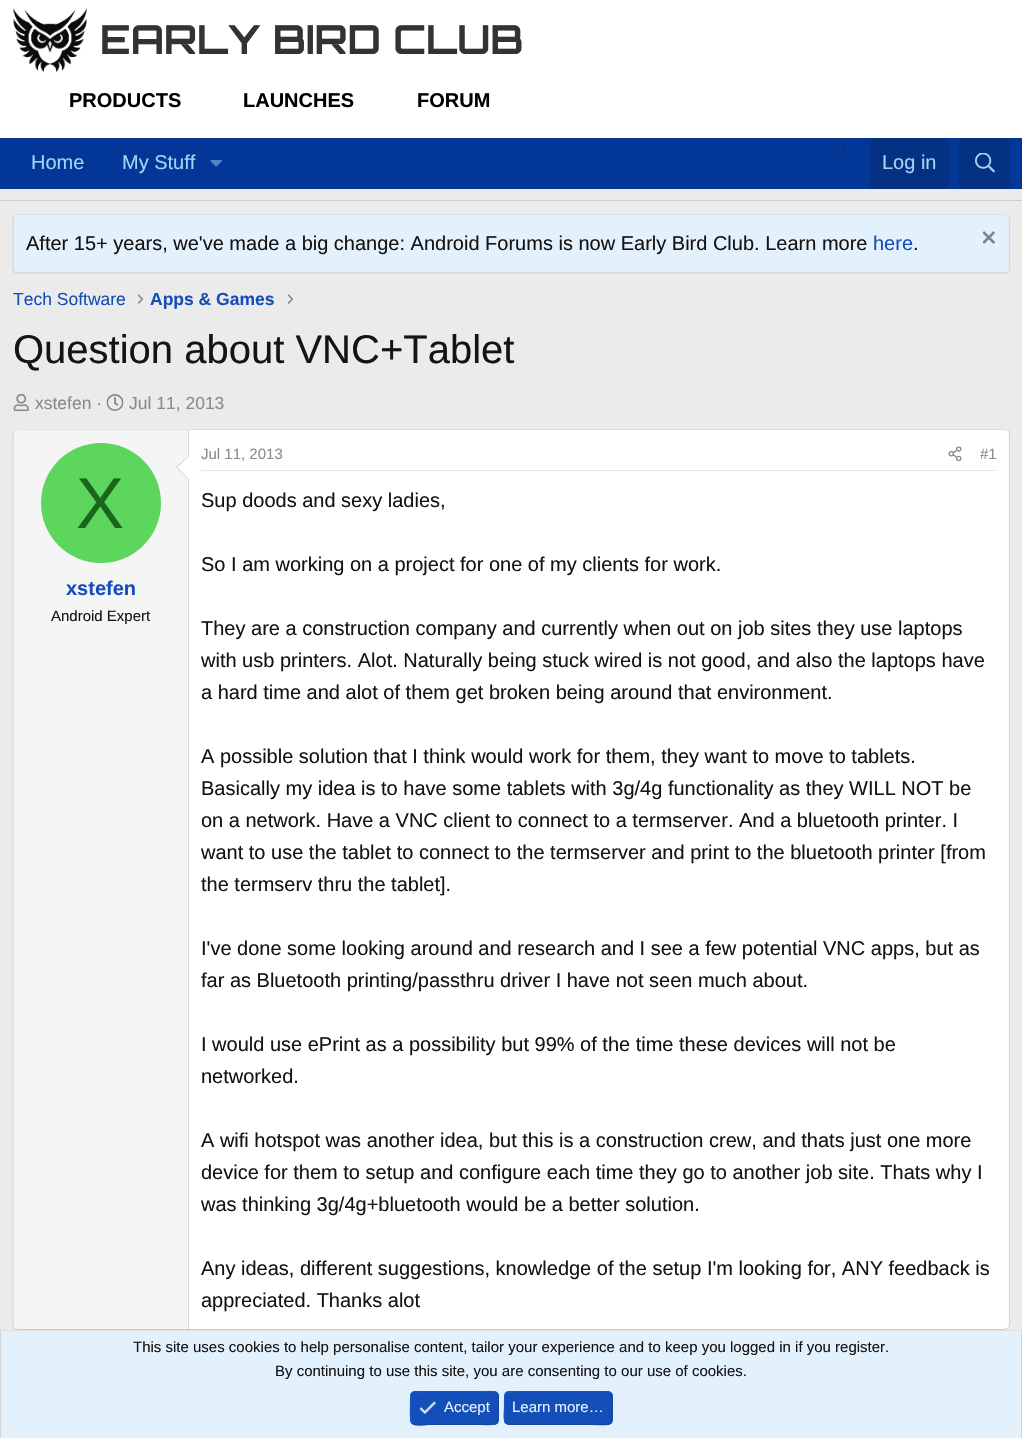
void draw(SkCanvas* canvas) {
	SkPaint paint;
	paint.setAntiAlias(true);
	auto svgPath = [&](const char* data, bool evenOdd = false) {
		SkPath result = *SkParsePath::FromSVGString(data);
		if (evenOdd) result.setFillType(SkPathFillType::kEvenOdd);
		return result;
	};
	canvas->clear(0xffebebeb);
	paint.setColor(0xffffffff);
	canvas->drawRect(SkRect::MakeXYWH(0, 0, 1022, 138), paint);
	canvas->drawImageRect(SkImages::DeferredFromEncodedData(SkData::MakeFromFileName("img1.png")), SkRect::MakeXYWH(12, 8, 76, 65), SkSamplingOptions());
	SkFont f1(fontMgr->matchFamilyStyle("Orbitron", SkFontStyle::Bold()), 40);
	f1.setSubpixel(true);
	paint.setColor(0xff333333);
	canvas->drawString("EARLY BIRD CLUB", 100, 54, f1, paint);
	SkFont f2(fontMgr->matchFamilyStyle("Liberation Sans", SkFontStyle::Bold()), 20);
	f2.setSubpixel(true);
	paint.setColor(0xff000000);
	canvas->drawString("PRODUCTS", 69, 107, f2, paint);
	canvas->drawString("LAUNCHES", 243, 107, f2, paint);
	canvas->drawString("FORUM", 417, 107, f2, paint);
	paint.setColor(0xff023697);
	canvas->drawRect(SkRect::MakeXYWH(0, 138, 1022, 51), paint);
	SkFont f3(fontMgr->matchFamilyStyle("Liberation Sans", SkFontStyle::Normal()), 20);
	f3.setSubpixel(true);
	paint.setColor(0xffa3d4f5);
	canvas->drawString("Home", 31, 169, f3, paint);
	canvas->drawString("My Stuff", 122, 169, f3, paint);
	canvas->drawImageRect(SkImages::DeferredFromEncodedData(SkData::MakeFromFileName("img2.png")), SkRect::MakeXYWH(210, 160, 12, 7), SkSamplingOptions());
	paint.setColor(0xff053183);
	canvas->drawRect(SkRect::MakeXYWH(844, 138, 1, 20), paint);
	canvas->drawPath(svgPath("M875 138H944C947 138 949 140 949 143V189H870V143C870 140 872 138 875 138Z"), paint);
	paint.setColor(0xffa3d4f5);
	canvas->drawString("Log in", 882, 169, f3, paint);
	paint.setColor(0xff053183);
	canvas->drawPath(svgPath("M964 138H1005C1008 138 1010 140 1010 143V189H959V143C959 140 961 138 964 138Z"), paint);
	canvas->drawImageRect(SkImages::DeferredFromEncodedData(SkData::MakeFromFileName("img3.png")), SkRect::MakeXYWH(975, 153, 20, 20), SkSamplingOptions());
	paint.setColor(0xffcccccc);
	canvas->drawRect(SkRect::MakeXYWH(0, 200, 1022, 1), paint);
	paint.setColor(0xffe3f1fd);
	canvas->drawRoundRect(SkRect::MakeXYWH(13, 214, 997, 60), 5, 5, paint);
	paint.setStroke(true);
	paint.setStrokeWidth(1.2);
	paint.setColor(0xffe0e0e0);
	canvas->drawPath(svgPath("M14.5 215.5L17.5 214.5H1005L1008 215.5"), paint);
	paint.setColor(0xffd6d6d6);
	canvas->drawPath(svgPath("M1008 215.5C1009 216.5 1009.5 217.5 1009.5 219V269C1009.5 270 1009 271 1008 272"), paint);
	paint.setColor(0xffcccccc);
	canvas->drawPath(svgPath("M1008 272L1005 273H17.5L14.5 272"), paint);
	paint.setColor(0xffd6d6d6);
	canvas->drawPath(svgPath("M14.5 272C13.5 271 13 270 13 269V219C13 217.5 13.5 216.5 14.5 215.5"), paint);
	paint.setStroke(false);
	paint.setColor(0xff141414);
	canvas->drawString("After 15+ years, we've made a big change: Android Forums is now Early Bird Club. Learn more", 26, 250, f3, paint);
	paint.setColor(0xff144eb8);
	canvas->drawString("here", 873, 250, f3, paint);
	paint.setColor(0xff141414);
	canvas->drawString(".", 913, 250, f3, paint);
	canvas->drawImageRect(SkImages::DeferredFromEncodedData(SkData::MakeFromFileName("img4.png")), SkRect::MakeXYWH(983, 231, 12, 13), SkSamplingOptions());
	SkFont f4(fontMgr->matchFamilyStyle("Liberation Sans", SkFontStyle::Normal()), 17.5);
	f4.setSubpixel(true);
	paint.setColor(0xff144eb8);
	canvas->drawString("Tech Software", 13, 305, f4, paint);
	canvas->drawImageRect(SkImages::DeferredFromEncodedData(SkData::MakeFromFileName("img5.png")), SkRect::MakeXYWH(138, 294, 6, 10), SkSamplingOptions());
	SkFont f5(fontMgr->matchFamilyStyle("Liberation Sans", SkFontStyle::Bold()), 17.5);
	f5.setSubpixel(true);
	canvas->drawString("Apps & Games", 150, 305, f5, paint);
	canvas->drawImageRect(SkImages::DeferredFromEncodedData(SkData::MakeFromFileName("img6.png")), SkRect::MakeXYWH(288, 294, 5, 10), SkSamplingOptions());
	SkFont f6(fontMgr->matchFamilyStyle("Liberation Sans", SkFontStyle::Normal()), 40);
	f6.setSubpixel(true);
	paint.setColor(0xff141414);
	canvas->drawString("Question about VNC+Tablet", 13, 363, f6, paint);
	canvas->drawImageRect(SkImages::DeferredFromEncodedData(SkData::MakeFromFileName("img7.png")), SkRect::MakeXYWH(13, 394, 16, 17), SkSamplingOptions());
	paint.setColor(0xff8a8a8a);
	canvas->drawString("xstefen ·", 35, 409, f4, paint);
	canvas->drawImageRect(SkImages::DeferredFromEncodedData(SkData::MakeFromFileName("img8.png")), SkRect::MakeXYWH(106, 394, 18, 17), SkSamplingOptions());
	canvas->drawString("Jul 11, 2013", 129, 409, f4, paint);
	paint.setColor(0xffffffff);
	canvas->drawRoundRect(SkRect::MakeXYWH(13, 429, 997, 901), 5, 5, paint);
	paint.setStroke(true);
	paint.setColor(0xffe0e0e0);
	canvas->drawPath(svgPath("M14.5 430.5L17.5 429.5H1005L1008 430.5"), paint);
	paint.setColor(0xffd6d6d6);
	canvas->drawPath(svgPath("M1008 430.5C1009 431.5 1009.5 432.5 1009.5 434V1325C1009.5 1326 1009 1327.5 1008 1328"), paint);
	paint.setColor(0xffcccccc);
	canvas->drawPath(svgPath("M1008 1328L1005 1329.5H17.5L14.5 1328"), paint);
	paint.setColor(0xffd6d6d6);
	canvas->drawPath(svgPath("M14.5 1328C13.5 1327.5 13 1326 13 1325V434C13 432.5 13.5 431.5 14.5 430.5"), paint);
	paint.setStroke(false);
	paint.setColor(0xfff5f5f5);
	canvas->drawPath(svgPath("M18 430H189V1329H18C16 1329 14 1327 14 1325V434C14 432 16 430 18 430Z"), paint);
	paint.setColor(0xffd6d6d6);
	canvas->drawRect(SkRect::MakeXYWH(188, 430, 1, 899), paint);
	canvas->drawPath(svgPath("M189 455V480L176 467.5Z"), paint);
	paint.setColor(0xffffffff);
	canvas->drawPath(svgPath("M189 456V479L177.5 467.5Z"), paint);
	paint.setColor(0xff5cd65c);
	canvas->drawCircle(101, 503, 60, paint);
	SkFont f7(fontMgr->matchFamilyStyle("Liberation Sans", SkFontStyle::Normal()), 72);
	f7.setSubpixel(true);
	paint.setColor(0xff1a661a);
	canvas->drawString("X", 76, 528, f7, paint);
	paint.setColor(0xff144eb8);
	canvas->drawString("xstefen", 66, 595, f2, paint);
	SkFont f8(fontMgr->matchFamilyStyle("Liberation Sans", SkFontStyle::Normal()), 15);
	f8.setSubpixel(true);
	paint.setColor(0xff141414);
	canvas->drawString("Android Expert", 51, 621, f8, paint);
	paint.setColor(0xffe6e6e6);
	canvas->drawRect(SkRect::MakeXYWH(201, 470, 795, 1), paint);
	paint.setColor(0xff8a8a8a);
	canvas->drawString("Jul 11, 2013", 201, 459, f8, paint);
	canvas->drawImageRect(SkImages::DeferredFromEncodedData(SkData::MakeFromFileName("img9.png")), SkRect::MakeXYWH(948, 446, 14, 15), SkSamplingOptions());
	canvas->drawString("#1", 980, 459, f8, paint);
	paint.setColor(0xff141414);
	canvas->drawString("Sup doods and sexy ladies,", 201, 507, f3, paint);
	canvas->drawString("So I am working on a project for one of my clients for work.", 201, 571, f3, paint);
	canvas->drawString("They are a construction company and currently when out on job sites they use laptops", 201, 635, f3, paint);
	canvas->drawString("with usb printers. Alot. Naturally being stuck wired is not good, and also the laptops have", 201, 667, f3, paint);
	canvas->drawString("a hard time and alot of them get broken being around that environment.", 201, 699, f3, paint);
	canvas->drawString("A possible solution that I think would work for them, they want to move to tablets.", 201, 763, f3, paint);
	canvas->drawString("Basically my idea is to have some tablets with 3g/4g functionality as they WILL NOT be", 201, 795, f3, paint);
	canvas->drawString("on a network. Have a VNC client to connect to a termserver. And a bluetooth printer. I", 201, 827, f3, paint);
	canvas->drawString("want to use the tablet to connect to the termserver and print to the bluetooth printer [from", 201, 859, f3, paint);
	canvas->drawString("the termserv thru the tablet].", 201, 891, f3, paint);
	canvas->drawString("I've done some looking around and research and I see a few potential VNC apps, but as", 201, 955, f3, paint);
	canvas->drawString("far as Bluetooth printing/passthru driver I have not seen much about.", 201, 987, f3, paint);
	canvas->drawString("I would use ePrint as a possibility but 99% of the time these devices will not be", 201, 1051, f3, paint);
	canvas->drawString("networked.", 201, 1083, f3, paint);
	canvas->drawString("A wifi hotspot was another idea, but this is a construction crew, and thats just one more", 201, 1147, f3, paint);
	canvas->drawString("device for them to setup and configure each time they go to another job site. Thats why I", 201, 1179, f3, paint);
	canvas->drawString("was thinking 3g/4g+bluetooth would be a better solution.", 201, 1211, f3, paint);
	canvas->drawString("Any ideas, different suggestions, knowledge of the setup I'm looking for, ANY feedback is", 201, 1275, f3, paint);
	canvas->drawString("appreciated. Thanks alot", 201, 1307, f3, paint);
	paint.setColor(0xffe3f1fd);
	canvas->drawRect(SkRect::MakeXYWH(1, 1331, 1020, 107), paint);
	paint.setColor(0xffe0e0e0);
	canvas->drawRect(SkRect::MakeXYWH(0, 1330, 1022, 1), paint);
	paint.setColor(0xffd6d6d6);
	canvas->drawRect(SkRect::MakeXYWH(1021, 1330, 1, 108), paint);
	canvas->drawRect(SkRect::MakeXYWH(0, 1330, 1, 108), paint);
	paint.setColor(0xff141414);
	canvas->drawString("This site uses cookies to help personalise content, tailor your experience and to keep you logged in if you register.", 133, 1352, f8, paint);
	canvas->drawString("By continuing to use this site, you are consenting to our use of cookies.", 275, 1376, f8, paint);
	paint.setColor(0xff144eb8);
	canvas->drawRoundRect(SkRect::MakeXYWH(410, 1391, 89, 34), 5, 5, paint);
	paint.setStroke(true);
	paint.setColor(0xff1244a1);
	canvas->drawPath(svgPath("M497 1393C499.5 1396 498 1405 498 1408C498 1427 500.5 1424.5 480.5 1424.5H428C427 1424.5 415 1426.5 412 1423"), paint);
	paint.setColor(0xff1757cf);
	canvas->drawPath(svgPath("M412 1423C409.5 1420.5 410.5 1411.5 410.5 1408C410.5 1389.5 408.5 1392 428 1392H480.5C482 1392 493.5 1390 497 1393"), paint);
	canvas->drawImageRect(SkImages::DeferredFromEncodedData(SkData::MakeFromFileName("img10.png")), SkRect::MakeXYWH(419, 1401, 17, 13), SkSamplingOptions());
	paint.setStroke(false);
	paint.setColor(0xffe3f1fd);
	canvas->drawString("Accept", 444, 1412, f8, paint);
	paint.setColor(0xff144eb8);
	canvas->drawRoundRect(SkRect::MakeXYWH(504, 1391, 109, 34), 5, 5, paint);
	paint.setStroke(true);
	paint.setColor(0xff1244a1);
	canvas->drawPath(svgPath("M610.5 1393C613 1396 612 1405 612 1408C612 1428 613.5 1424.5 591 1424.5H509L505.5 1423"), paint);
	paint.setColor(0xff1757cf);
	canvas->drawPath(svgPath("M505.5 1423C503 1420.5 504.5 1411.5 504.5 1408C504.5 1388 503 1392 525 1392H607.5L610.5 1393"), paint);
	paint.setStroke(false);
	paint.setColor(0xffe3f1fd);
	canvas->drawString("Learn more…", 512, 1412, f8, paint);
}
